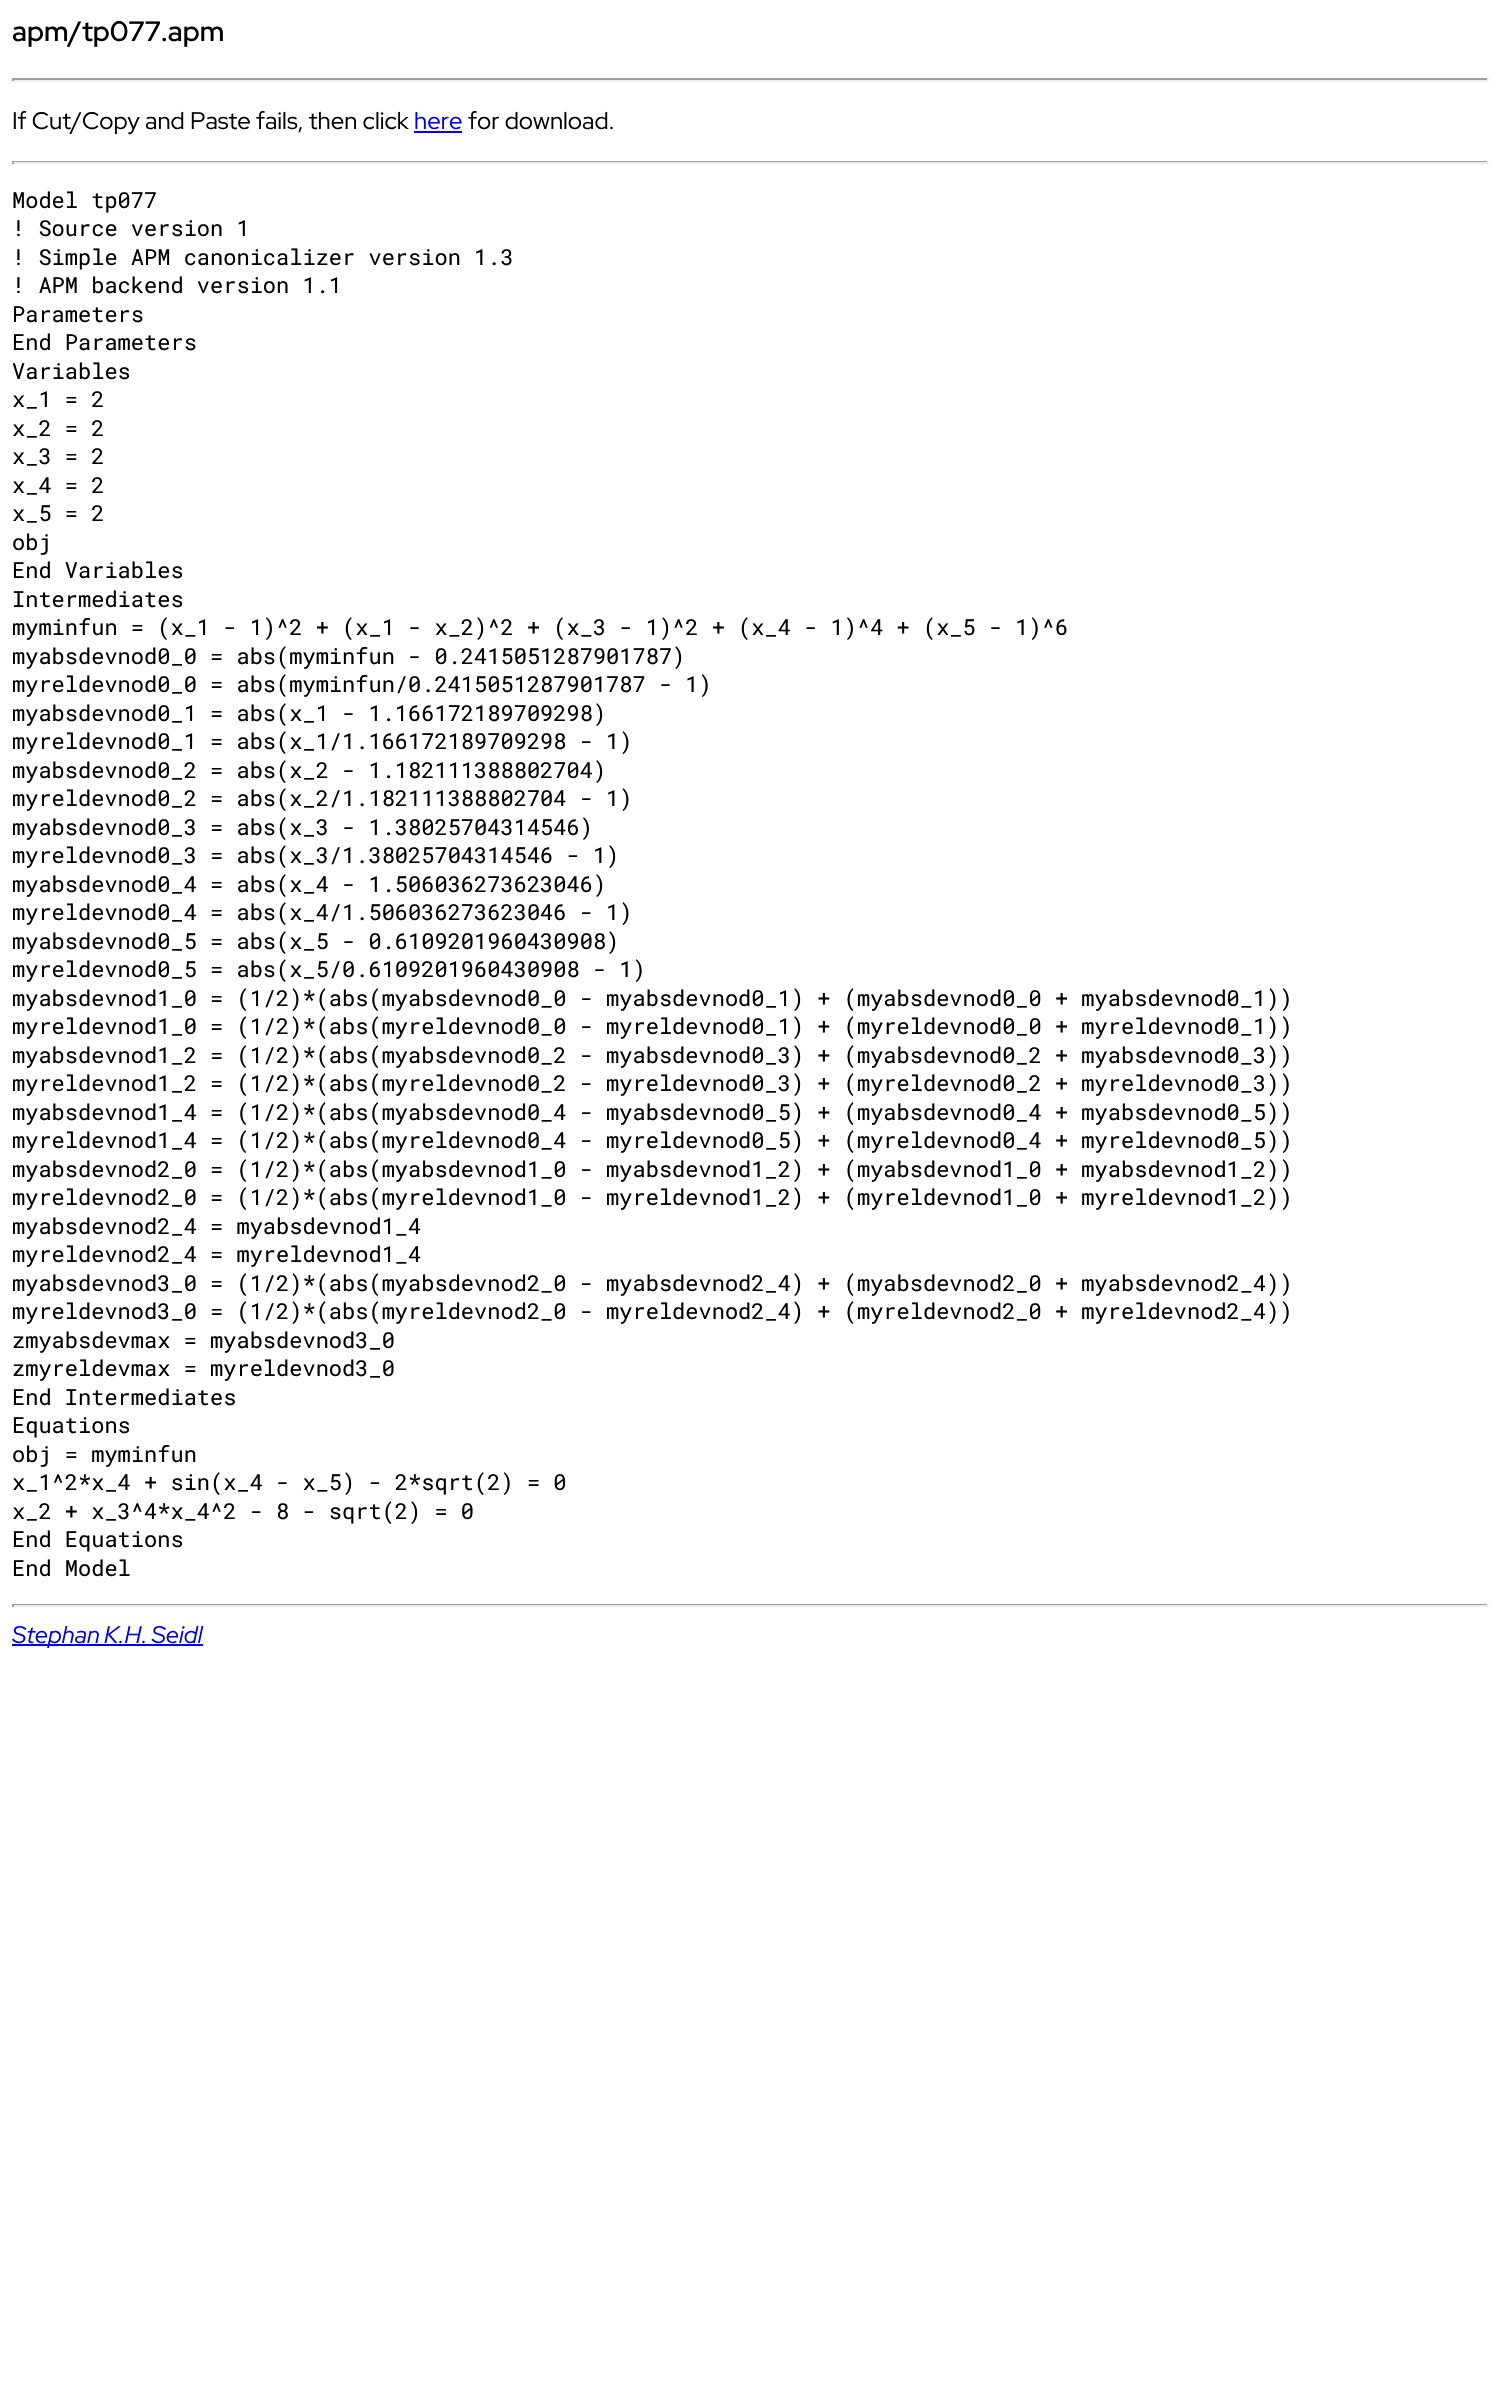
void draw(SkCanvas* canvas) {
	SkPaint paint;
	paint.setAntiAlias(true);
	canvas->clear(0xffffffff);
	SkFont f1(fontMgr->matchFamilyStyle("Red Hat Display", SkFontStyle(600, SkFontStyle::kNormal_Width, SkFontStyle::kUpright_Slant)), 28);
	f1.setSubpixel(true);
	paint.setColor(0xff000000);
	canvas->drawString("apm/tp077.apm", 12, 41, f1, paint);
	paint.setColor(0xff9f9f9f);
	canvas->drawRect(SkRect::MakeXYWH(12, 78, 1476, 2), paint);
	paint.setColor(0xffeeeeee);
	canvas->drawRect(SkRect::MakeXYWH(1487, 78, 2, 3), paint);
	canvas->drawRect(SkRect::MakeXYWH(12, 80, 1476, 2), paint);
	paint.setColor(0xff9f9f9f);
	canvas->drawRect(SkRect::MakeXYWH(12, 78, 2, 3), paint);
	SkFont f2(fontMgr->matchFamilyStyle("Red Hat Display", SkFontStyle::Normal()), 24);
	f2.setSubpixel(true);
	paint.setColor(0xff000000);
	canvas->drawString("If Cut/Copy and Paste fails, then click", 12, 129, f2, paint);
	paint.setColor(0xff0000ee);
	canvas->drawString("here", 414, 129, f2, paint);
	canvas->drawRect(SkRect::MakeXYWH(414, 131, 48, 2), paint);
	paint.setColor(0xff000000);
	canvas->drawString("for download.", 468, 129, f2, paint);
	paint.setColor(0xff9f9f9f);
	canvas->drawRect(SkRect::MakeXYWH(12, 161, 1476, 1), paint);
	paint.setColor(0xffeeeeee);
	canvas->drawRect(SkRect::MakeXYWH(1487, 161, 2, 3), paint);
	canvas->drawRect(SkRect::MakeXYWH(12, 162, 1476, 2), paint);
	paint.setColor(0xff9f9f9f);
	canvas->drawRect(SkRect::MakeXYWH(12, 161, 2, 3), paint);
	SkFont f3(fontMgr->matchFamilyStyle("Roboto Mono", SkFontStyle::Normal()), 22);
	f3.setSubpixel(true);
	paint.setColor(0xff000000);
	canvas->drawString("Model tp077", 12, 208, f3, paint);
	canvas->drawString("! Source version 1", 12, 236, f3, paint);
	canvas->drawString("! Simple APM canonicalizer version 1.3", 12, 265, f3, paint);
	canvas->drawString("! APM backend version 1.1", 12, 293, f3, paint);
	canvas->drawString("Parameters", 12, 322, f3, paint);
	canvas->drawString("End Parameters", 12, 350, f3, paint);
	canvas->drawString("Variables", 12, 379, f3, paint);
	canvas->drawString("x_1 = 2", 12, 407, f3, paint);
	canvas->drawString("x_2 = 2", 12, 436, f3, paint);
	canvas->drawString("x_3 = 2", 12, 464, f3, paint);
	canvas->drawString("x_4 = 2", 12, 493, f3, paint);
	canvas->drawString("x_5 = 2", 12, 521, f3, paint);
	canvas->drawString("obj", 12, 550, f3, paint);
	canvas->drawString("End Variables", 12, 578, f3, paint);
	canvas->drawString("Intermediates", 12, 607, f3, paint);
	canvas->drawString("myminfun = (x_1 - 1)^2 + (x_1 - x_2)^2 + (x_3 - 1)^2 + (x_4 - 1)^4 + (x_5 - 1)^6", 12, 635, f3, paint);
	canvas->drawString("myabsdevnod0_0 = abs(myminfun - 0.2415051287901787)", 12, 664, f3, paint);
	canvas->drawString("myreldevnod0_0 = abs(myminfun/0.2415051287901787 - 1)", 12, 692, f3, paint);
	canvas->drawString("myabsdevnod0_1 = abs(x_1 - 1.166172189709298)", 12, 721, f3, paint);
	canvas->drawString("myreldevnod0_1 = abs(x_1/1.166172189709298 - 1)", 12, 749, f3, paint);
	canvas->drawString("myabsdevnod0_2 = abs(x_2 - 1.182111388802704)", 12, 778, f3, paint);
	canvas->drawString("myreldevnod0_2 = abs(x_2/1.182111388802704 - 1)", 12, 806, f3, paint);
	canvas->drawString("myabsdevnod0_3 = abs(x_3 - 1.38025704314546)", 12, 835, f3, paint);
	canvas->drawString("myreldevnod0_3 = abs(x_3/1.38025704314546 - 1)", 12, 863, f3, paint);
	canvas->drawString("myabsdevnod0_4 = abs(x_4 - 1.506036273623046)", 12, 892, f3, paint);
	canvas->drawString("myreldevnod0_4 = abs(x_4/1.506036273623046 - 1)", 12, 920, f3, paint);
	canvas->drawString("myabsdevnod0_5 = abs(x_5 - 0.6109201960430908)", 12, 949, f3, paint);
	canvas->drawString("myreldevnod0_5 = abs(x_5/0.6109201960430908 - 1)", 12, 977, f3, paint);
	canvas->drawString("myabsdevnod1_0 = (1/2)*(abs(myabsdevnod0_0 - myabsdevnod0_1) + (myabsdevnod0_0 + myabsdevnod0_1))", 12, 1006, f3, paint);
	canvas->drawString("myreldevnod1_0 = (1/2)*(abs(myreldevnod0_0 - myreldevnod0_1) + (myreldevnod0_0 + myreldevnod0_1))", 12, 1034, f3, paint);
	canvas->drawString("myabsdevnod1_2 = (1/2)*(abs(myabsdevnod0_2 - myabsdevnod0_3) + (myabsdevnod0_2 + myabsdevnod0_3))", 12, 1063, f3, paint);
	canvas->drawString("myreldevnod1_2 = (1/2)*(abs(myreldevnod0_2 - myreldevnod0_3) + (myreldevnod0_2 + myreldevnod0_3))", 12, 1091, f3, paint);
	canvas->drawString("myabsdevnod1_4 = (1/2)*(abs(myabsdevnod0_4 - myabsdevnod0_5) + (myabsdevnod0_4 + myabsdevnod0_5))", 12, 1120, f3, paint);
	canvas->drawString("myreldevnod1_4 = (1/2)*(abs(myreldevnod0_4 - myreldevnod0_5) + (myreldevnod0_4 + myreldevnod0_5))", 12, 1148, f3, paint);
	canvas->drawString("myabsdevnod2_0 = (1/2)*(abs(myabsdevnod1_0 - myabsdevnod1_2) + (myabsdevnod1_0 + myabsdevnod1_2))", 12, 1177, f3, paint);
	canvas->drawString("myreldevnod2_0 = (1/2)*(abs(myreldevnod1_0 - myreldevnod1_2) + (myreldevnod1_0 + myreldevnod1_2))", 12, 1205, f3, paint);
	canvas->drawString("myabsdevnod2_4 = myabsdevnod1_4", 12, 1234, f3, paint);
	canvas->drawString("myreldevnod2_4 = myreldevnod1_4", 12, 1262, f3, paint);
	canvas->drawString("myabsdevnod3_0 = (1/2)*(abs(myabsdevnod2_0 - myabsdevnod2_4) + (myabsdevnod2_0 + myabsdevnod2_4))", 12, 1291, f3, paint);
	canvas->drawString("myreldevnod3_0 = (1/2)*(abs(myreldevnod2_0 - myreldevnod2_4) + (myreldevnod2_0 + myreldevnod2_4))", 12, 1319, f3, paint);
	canvas->drawString("zmyabsdevmax = myabsdevnod3_0", 12, 1348, f3, paint);
	canvas->drawString("zmyreldevmax = myreldevnod3_0", 12, 1376, f3, paint);
	canvas->drawString("End Intermediates", 12, 1405, f3, paint);
	canvas->drawString("Equations", 12, 1433, f3, paint);
	canvas->drawString("obj = myminfun", 12, 1462, f3, paint);
	canvas->drawString("x_1^2*x_4 + sin(x_4 - x_5) - 2*sqrt(2) = 0", 12, 1490, f3, paint);
	canvas->drawString("x_2 + x_3^4*x_4^2 - 8 - sqrt(2) = 0", 12, 1519, f3, paint);
	canvas->drawString("End Equations", 12, 1547, f3, paint);
	canvas->drawString("End Model", 12, 1576, f3, paint);
	paint.setColor(0xff9f9f9f);
	canvas->drawRect(SkRect::MakeXYWH(12, 1604, 1476, 1), paint);
	paint.setColor(0xffeeeeee);
	canvas->drawRect(SkRect::MakeXYWH(1487, 1604, 2, 3), paint);
	canvas->drawRect(SkRect::MakeXYWH(12, 1605, 1476, 2), paint);
	paint.setColor(0xff9f9f9f);
	canvas->drawRect(SkRect::MakeXYWH(12, 1604, 2, 3), paint);
	paint.setColor(0xff0000ee);
	canvas->drawRect(SkRect::MakeXYWH(12, 1644, 191, 2), paint);
	SkFont f4(fontMgr->matchFamilyStyle("Red Hat Display", SkFontStyle::Italic()), 24);
	f4.setSubpixel(true);
	canvas->drawString("Stephan K.H. Seidl", 12, 1643, f4, paint);
}
